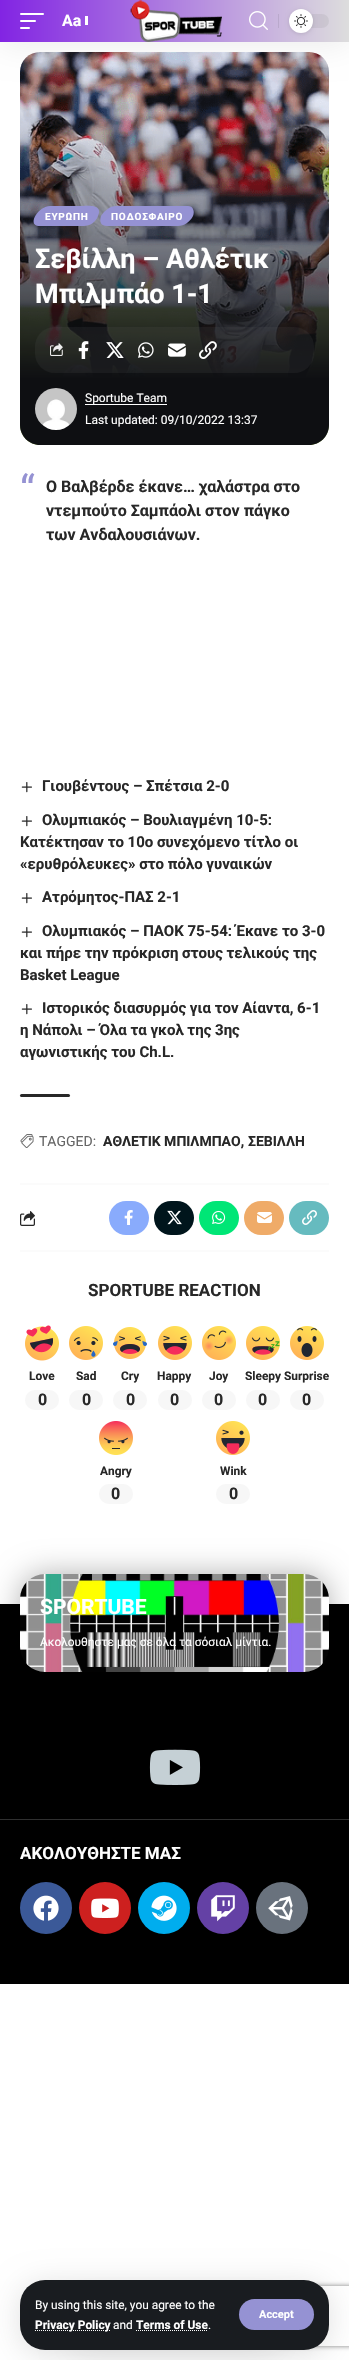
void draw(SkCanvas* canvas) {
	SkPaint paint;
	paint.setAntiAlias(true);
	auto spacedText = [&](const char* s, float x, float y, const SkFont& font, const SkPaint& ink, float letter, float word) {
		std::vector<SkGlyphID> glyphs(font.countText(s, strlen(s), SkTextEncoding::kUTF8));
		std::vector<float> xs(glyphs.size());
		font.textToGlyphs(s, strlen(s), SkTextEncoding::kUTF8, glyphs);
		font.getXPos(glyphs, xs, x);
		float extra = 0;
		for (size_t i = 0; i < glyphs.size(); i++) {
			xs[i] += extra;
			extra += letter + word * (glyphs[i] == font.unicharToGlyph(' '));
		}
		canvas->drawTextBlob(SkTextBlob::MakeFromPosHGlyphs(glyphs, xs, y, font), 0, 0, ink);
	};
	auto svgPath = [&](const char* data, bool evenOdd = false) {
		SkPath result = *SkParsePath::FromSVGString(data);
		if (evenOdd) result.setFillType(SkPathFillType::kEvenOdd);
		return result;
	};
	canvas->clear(0xffffffff);
	canvas->drawImageRect(SkImages::DeferredFromEncodedData(SkData::MakeFromFileName("img4.png")), SkRect::MakeXYWH(20, 52, 309, 393), SkSamplingOptions());
	paint.setColor(0x12000000);
	paint.setMaskFilter(SkMaskFilter::MakeBlur(kNormal_SkBlurStyle, 15));
	canvas->drawRect(SkRect::MakeXYWH(0, 4, 349, 42), paint);
	paint.setMaskFilter(nullptr);
	{
		const SkColor colors[] = {0xff8224e3, 0xffdddddd};
		const float stops[] = {0, 1};
		const SkPoint ends[] = {{0, 21}, {349, 21}};
		paint.setShader(SkGradientShader::MakeLinear(ends, colors, stops, 2, SkTileMode::kClamp));
		paint.setAlpha(255);
	}
	canvas->drawRect(SkRect::MakeXYWH(0, 0, 349, 42), paint);
	paint.setShader(nullptr);
	paint.setColor(0xffffffff);
	canvas->drawRoundRect(SkRect::MakeXYWH(20, 13, 24, 2), 1, 1, paint);
	canvas->drawRoundRect(SkRect::MakeXYWH(20, 20, 16, 2), 1, 1, paint);
	canvas->drawRoundRect(SkRect::MakeXYWH(20, 27, 10, 2), 1, 1, paint);
	SkFont f1(fontMgr->matchFamilyStyle("Roboto", SkFontStyle::Bold()), 16);
	f1.setSubpixel(true);
	canvas->drawString("Aa", 62, 26, f1, paint);
	canvas->drawRect(SkRect::MakeXYWH(85, 16, 3, 9), paint);
	canvas->drawImageRect(SkImages::DeferredFromEncodedData(SkData::MakeFromFileName("img1.png")), SkRect::MakeXYWH(130, 0, 92, 42), SkSamplingOptions());
	canvas->drawImageRect(SkImages::DeferredFromEncodedData(SkData::MakeFromFileName("img2.png")), SkRect::MakeXYWH(249, 11, 19, 19), SkSamplingOptions());
	paint.setColor(0xffbaa9cc);
	canvas->drawRect(SkRect::MakeXYWH(278, 14, 1, 14), paint);
	paint.setColor(0x26888888);
	canvas->drawRoundRect(SkRect::MakeXYWH(289, 14, 40, 14), 7, 7, paint);
	paint.setColor(0x1f000000);
	paint.setMaskFilter(SkMaskFilter::MakeBlur(kNormal_SkBlurStyle, 2));
	canvas->drawRoundRect(SkRect::MakeXYWH(289, 10, 24, 24), 12, 12, paint);
	paint.setMaskFilter(nullptr);
	paint.setColor(0xffffffff);
	canvas->drawCircle(301, 21, 12, paint);
	canvas->drawImageRect(SkImages::DeferredFromEncodedData(SkData::MakeFromFileName("img3.png")), SkRect::MakeXYWH(294, 14, 14, 14), SkSamplingOptions());
	paint.setColor(0x1f000000);
	paint.setMaskFilter(SkMaskFilter::MakeBlur(kNormal_SkBlurStyle, 15));
	canvas->drawRoundRect(SkRect::MakeXYWH(20, 2284, 309, 70), 25, 25, paint);
	paint.setMaskFilter(nullptr);
	paint.setColor(0x12000000);
	paint.setMaskFilter(SkMaskFilter::MakeBlur(kNormal_SkBlurStyle, 15));
	canvas->drawRoundRect(SkRect::MakeXYWH(70, 2313, 210, 42), 20, 20, paint);
	paint.setMaskFilter(nullptr);
	canvas->save();
	canvas->clipPath(svgPath("M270 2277H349V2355H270ZM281 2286H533C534 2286 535 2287 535 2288V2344C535 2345 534 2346 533 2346H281C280 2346 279 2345 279 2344V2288C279 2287 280 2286 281 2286Z", true), true);
	paint.setColor(0xff808080);
	paint.setMaskFilter(SkMaskFilter::MakeBlur(kNormal_SkBlurStyle, 2.5));
	canvas->drawRoundRect(SkRect::MakeXYWH(279, 2286, 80, 60), 2, 2, paint);
	paint.setMaskFilter(nullptr);
	canvas->restore();
	paint.setColor(0xff191c20);
	canvas->drawRoundRect(SkRect::MakeXYWH(20, 2280, 309, 70), 25, 25, paint);
	SkFont f2(fontMgr->matchFamilyStyle("Roboto", SkFontStyle::Normal()), 11.9);
	f2.setSubpixel(true);
	paint.setColor(0xffffffff);
	canvas->drawString("By using this site, you agree to the", 35, 2309, f2, paint);
	paint.setStroke(true);
	paint.setStrokeWidth(1);
	paint.setPathEffect(SkDashPathEffect::Make({{1, 1}}, 0));
	canvas->drawPath(svgPath("M35 2330.5H110.5"), paint);
	paint.setPathEffect(nullptr);
	SkFont f3(fontMgr->matchFamilyStyle("Roboto", SkFontStyle::Bold()), 11.9);
	f3.setSubpixel(true);
	paint.setStroke(false);
	canvas->drawString("Privacy Policy", 35, 2329, f3, paint);
	canvas->drawString("and", 113, 2329, f2, paint);
	canvas->drawString("Terms of Use", 136, 2329, f3, paint);
	paint.setStroke(true);
	paint.setPathEffect(SkDashPathEffect::Make({{1, 1}}, 0));
	canvas->drawPath(svgPath("M136 2330.5H208"), paint);
	paint.setPathEffect(nullptr);
	paint.setStroke(false);
	canvas->drawString(".", 208, 2329, f2, paint);
	paint.setColor(0xff9592d3);
	canvas->drawRoundRect(SkRect::MakeXYWH(239, 2299, 75, 31), 15.5, 15.5, paint);
	SkFont f4(fontMgr->matchFamilyStyle("Roboto", SkFontStyle::Bold()), 11);
	f4.setSubpixel(true);
	paint.setColor(0xffffffff);
	canvas->drawString("Accept", 259, 2318, f4, paint);
	{
		const SkColor colors[] = {0xff0e0f12, 0x000e0f12};
		const float stops[] = {0.2, 1};
		const SkPoint ends[] = {{175, 445}, {175, 111}};
		paint.setShader(SkGradientShader::MakeLinear(ends, colors, stops, 2, SkTileMode::kClamp));
		paint.setAlpha(255);
	}
	canvas->drawPath(svgPath("M20 111H329V425C329 436 320 445 309 445H40C29 445 20 436 20 425Z"), paint);
	paint.setShader(nullptr);
	paint.setColor(0xff9592d3);
	canvas->drawPath(svgPath("M50 206H79C85 206 104 203 98 216C96 222 90 226 84 226H38C27 224 39 206 50 206Z"), paint);
	SkFont f5(fontMgr->matchFamilyStyle("Roboto", SkFontStyle::Bold()), 10);
	f5.setSubpixel(true);
	paint.setColor(0xffffffff);
	spacedText("ΕΥΡΩΠΗ", 45, 220, f5, paint, 0.75, 0);
	paint.setColor(0xff9592d3);
	canvas->drawPath(svgPath("M116 206H188C193 206 195 211 193 216C190 222 184 226 178 226H107C101 226 99 222 101 216C104 211 110 206 116 206Z"), paint);
	paint.setColor(0xffffffff);
	spacedText("ΠΟΔΟΣΦΑΙΡΟ", 111, 220, f5, paint, 0.75, 0);
	SkFont f6(fontMgr->matchFamilyStyle("Roboto", SkFontStyle::Bold()), 27);
	f6.setSubpixel(true);
	canvas->drawString("Σεβίλλη – Αθλέτικ", 35, 268, f6, paint);
	canvas->drawString("Μπιλμπάο 1-1", 35, 303, f6, paint);
	paint.setColor(0x17888888);
	canvas->drawRoundRect(SkRect::MakeXYWH(35, 327, 279, 46), 20, 20, paint);
	canvas->drawImageRect(SkImages::DeferredFromEncodedData(SkData::MakeFromFileName("img5.png")), SkRect::MakeXYWH(50, 343, 13, 13), SkSamplingOptions());
	canvas->drawImageRect(SkImages::DeferredFromEncodedData(SkData::MakeFromFileName("img6.png")), SkRect::MakeXYWH(78, 341, 11, 18), SkSamplingOptions());
	canvas->drawImageRect(SkImages::DeferredFromEncodedData(SkData::MakeFromFileName("img7.png")), SkRect::MakeXYWH(106, 342, 18, 16), SkSamplingOptions());
	canvas->drawImageRect(SkImages::DeferredFromEncodedData(SkData::MakeFromFileName("img8.png")), SkRect::MakeXYWH(138, 342, 16, 16), SkSamplingOptions());
	canvas->drawImageRect(SkImages::DeferredFromEncodedData(SkData::MakeFromFileName("img9.png")), SkRect::MakeXYWH(168, 343, 18, 14), SkSamplingOptions());
	canvas->drawImageRect(SkImages::DeferredFromEncodedData(SkData::MakeFromFileName("img10.png")), SkRect::MakeXYWH(199, 341, 18, 18), SkSamplingOptions());
	canvas->drawImageRect(SkImages::DeferredFromEncodedData(SkData::MakeFromFileName("img11.png")), SkRect::MakeXYWH(35, 388, 42, 42), SkSamplingOptions());
	paint.setColor(0xffffffff);
	canvas->drawRect(SkRect::MakeXYWH(85, 404, 82, 1), paint);
	SkFont f7(fontMgr->matchFamilyStyle("Roboto", SkFontStyle::Normal()), 12);
	f7.setSubpixel(true);
	canvas->drawString("Sportube Team", 85, 402, f7, paint);
	canvas->drawString("Last updated: 09/10/2022 13:37", 85, 424, f7, paint);
	SkFont f8(fontMgr->matchFamilyStyle("Roboto", SkFontStyle::Normal()), 42);
	f8.setSubpixel(true);
	paint.setColor(0xff9592d3);
	canvas->drawString("“", 20, 505, f8, paint);
	paint.setColor(0xff282828);
	canvas->drawString("Ο Βαλβέρδε έκανε… χαλάστρα στο", 46, 492, f1, paint);
	canvas->drawString("ντεμπούτο Σαμπάολι στον πάγκο", 46, 516, f1, paint);
	canvas->drawString("των Ανδαλουσιάνων.", 46, 540, f1, paint);
	canvas->drawImageRect(SkImages::DeferredFromEncodedData(SkData::MakeFromFileName("img12.png")), SkRect::MakeXYWH(21, 782, 11, 11), SkSamplingOptions());
	SkFont f9(fontMgr->matchFamilyStyle("Roboto", SkFontStyle::Bold()), 15);
	f9.setSubpixel(true);
	canvas->drawString("Γιουβέντους – Σπέτσια 2-0", 42, 791, f9, paint);
	canvas->drawImageRect(SkImages::DeferredFromEncodedData(SkData::MakeFromFileName("img12.png")), SkRect::MakeXYWH(21, 816, 11, 11), SkSamplingOptions());
	canvas->drawString("Ολυμπιακός – Βουλιαγμένη 10-5:", 42, 825, f9, paint);
	canvas->drawString("Κατέκτησαν το 10ο συνεχόμενο τίτλο οι", 20, 847, f9, paint);
	canvas->drawString("«ερυθρόλευκες» στο πόλο γυναικών", 20, 869, f9, paint);
	canvas->drawImageRect(SkImages::DeferredFromEncodedData(SkData::MakeFromFileName("img12.png")), SkRect::MakeXYWH(21, 893, 11, 11), SkSamplingOptions());
	canvas->drawString("Ατρόμητος-ΠΑΣ 2-1", 42, 902, f9, paint);
	canvas->drawImageRect(SkImages::DeferredFromEncodedData(SkData::MakeFromFileName("img12.png")), SkRect::MakeXYWH(21, 927, 11, 11), SkSamplingOptions());
	canvas->drawString("Ολυμπιακός – ΠΑΟΚ 75-54: Έκανε το 3-0", 42, 936, f9, paint);
	canvas->drawString("και πήρε την πρόκριση στους τελικούς της", 20, 958, f9, paint);
	canvas->drawString("Basket League", 20, 980, f9, paint);
	canvas->drawImageRect(SkImages::DeferredFromEncodedData(SkData::MakeFromFileName("img12.png")), SkRect::MakeXYWH(21, 1004, 11, 11), SkSamplingOptions());
	canvas->drawString("Ιστορικός διασυρμός για τον Αίαντα, 6-1", 42, 1013, f9, paint);
	canvas->drawString("η Νάπολι – Όλα τα γκολ της 3ης", 20, 1035, f9, paint);
	canvas->drawString("αγωνιστικής του Ch.L.", 20, 1057, f9, paint);
	canvas->drawRoundRect(SkRect::MakeXYWH(20, 1094, 50, 3), 1.5, 1.5, paint);
	canvas->drawImageRect(SkImages::DeferredFromEncodedData(SkData::MakeFromFileName("img13.png")), SkRect::MakeXYWH(20, 1134, 14, 14), SkSamplingOptions());
	SkFont f10(fontMgr->matchFamilyStyle("Roboto", SkFontStyle::Normal()), 14);
	f10.setSubpixel(true);
	paint.setColor(0xff666666);
	canvas->drawString("TAGGED:", 39, 1146, f10, paint);
	SkFont f11(fontMgr->matchFamilyStyle("Roboto", SkFontStyle::Bold()), 14);
	f11.setSubpixel(true);
	paint.setColor(0xff282828);
	canvas->drawString("ΑΘΛΕΤΙΚ ΜΠΙΛΜΠΑΟ,", 103, 1146, f11, paint);
	canvas->drawString("ΣΕΒΙΛΛΗ", 248, 1146, f11, paint);
	paint.setColor(0xfffbfbfb);
	canvas->drawRect(SkRect::MakeXYWH(20, 1183, 309, 2), paint);
	canvas->drawImageRect(SkImages::DeferredFromEncodedData(SkData::MakeFromFileName("img14.png")), SkRect::MakeXYWH(20, 1211, 15, 15), SkSamplingOptions());
	paint.setColor(0xff89abfc);
	canvas->drawRoundRect(SkRect::MakeXYWH(109, 1201, 40, 34), 17, 17, paint);
	canvas->drawImageRect(SkImages::DeferredFromEncodedData(SkData::MakeFromFileName("img15.png")), SkRect::MakeXYWH(124, 1210, 9, 15), SkSamplingOptions());
	paint.setColor(0xff00151c);
	canvas->drawRoundRect(SkRect::MakeXYWH(154, 1201, 40, 34), 17, 17, paint);
	canvas->drawImageRect(SkImages::DeferredFromEncodedData(SkData::MakeFromFileName("img16.png")), SkRect::MakeXYWH(167, 1210, 15, 15), SkSamplingOptions());
	paint.setColor(0xff00e676);
	canvas->drawRoundRect(SkRect::MakeXYWH(199, 1201, 40, 34), 17, 17, paint);
	canvas->drawImageRect(SkImages::DeferredFromEncodedData(SkData::MakeFromFileName("img17.png")), SkRect::MakeXYWH(212, 1210, 14, 14), SkSamplingOptions());
	paint.setColor(0xffefab68);
	canvas->drawRoundRect(SkRect::MakeXYWH(244, 1201, 40, 34), 17, 17, paint);
	canvas->drawImageRect(SkImages::DeferredFromEncodedData(SkData::MakeFromFileName("img18.png")), SkRect::MakeXYWH(257, 1212, 15, 11), SkSamplingOptions());
	paint.setColor(0xff66bbbf);
	canvas->drawRoundRect(SkRect::MakeXYWH(289, 1201, 40, 34), 17, 17, paint);
	canvas->drawImageRect(SkImages::DeferredFromEncodedData(SkData::MakeFromFileName("img19.png")), SkRect::MakeXYWH(302, 1210, 15, 15), SkSamplingOptions());
	paint.setColor(0xfffbfbfb);
	canvas->drawRect(SkRect::MakeXYWH(20, 1250, 309, 2), paint);
	SkFont f12(fontMgr->matchFamilyStyle("Roboto", SkFontStyle::Bold()), 17);
	f12.setSubpixel(true);
	paint.setColor(0xff282828);
	canvas->drawString("SPORTUBE REACTION", 88, 1296, f12, paint);
	canvas->drawImageRect(SkImages::DeferredFromEncodedData(SkData::MakeFromFileName("img20.png")), SkRect::MakeXYWH(25, 1325, 34, 36), SkSamplingOptions());
	canvas->drawString("Love", 29, 1380, f3, paint);
	paint.setColor(0xfff7f7f7);
	canvas->drawRoundRect(SkRect::MakeXYWH(25, 1390, 34, 20), 10, 10, paint);
	paint.setColor(0xff282828);
	canvas->drawString("0", 38, 1405, f1, paint);
	canvas->drawImageRect(SkImages::DeferredFromEncodedData(SkData::MakeFromFileName("img21.png")), SkRect::MakeXYWH(69, 1326, 34, 34), SkSamplingOptions());
	canvas->drawString("Sad", 76, 1380, f3, paint);
	paint.setColor(0xfff7f7f7);
	canvas->drawRoundRect(SkRect::MakeXYWH(69, 1390, 34, 20), 10, 10, paint);
	paint.setColor(0xff282828);
	canvas->drawString("0", 82, 1405, f1, paint);
	canvas->drawImageRect(SkImages::DeferredFromEncodedData(SkData::MakeFromFileName("img22.png")), SkRect::MakeXYWH(113, 1327, 34, 32), SkSamplingOptions());
	canvas->drawString("Cry", 121, 1380, f3, paint);
	paint.setColor(0xfff7f7f7);
	canvas->drawRoundRect(SkRect::MakeXYWH(113, 1390, 34, 20), 10, 10, paint);
	paint.setColor(0xff282828);
	canvas->drawString("0", 126, 1405, f1, paint);
	canvas->drawImageRect(SkImages::DeferredFromEncodedData(SkData::MakeFromFileName("img23.png")), SkRect::MakeXYWH(158, 1326, 34, 34), SkSamplingOptions());
	canvas->drawString("Happy", 157, 1380, f3, paint);
	paint.setColor(0xfff7f7f7);
	canvas->drawRoundRect(SkRect::MakeXYWH(158, 1390, 34, 20), 10, 10, paint);
	paint.setColor(0xff282828);
	canvas->drawString("0", 170, 1405, f1, paint);
	canvas->drawImageRect(SkImages::DeferredFromEncodedData(SkData::MakeFromFileName("img24.png")), SkRect::MakeXYWH(202, 1326, 34, 34), SkSamplingOptions());
	canvas->drawString("Joy", 209, 1380, f3, paint);
	paint.setColor(0xfff7f7f7);
	canvas->drawRoundRect(SkRect::MakeXYWH(202, 1390, 34, 20), 10, 10, paint);
	paint.setColor(0xff282828);
	canvas->drawString("0", 214, 1405, f1, paint);
	canvas->drawImageRect(SkImages::DeferredFromEncodedData(SkData::MakeFromFileName("img25.png")), SkRect::MakeXYWH(246, 1326, 34, 34), SkSamplingOptions());
	canvas->drawString("Sleepy", 245, 1380, f3, paint);
	paint.setColor(0xfff7f7f7);
	canvas->drawRoundRect(SkRect::MakeXYWH(246, 1390, 34, 20), 10, 10, paint);
	paint.setColor(0xff282828);
	canvas->drawString("0", 258, 1405, f1, paint);
	canvas->drawImageRect(SkImages::DeferredFromEncodedData(SkData::MakeFromFileName("img26.png")), SkRect::MakeXYWH(290, 1326, 34, 34), SkSamplingOptions());
	canvas->drawString("Surprise", 284, 1380, f3, paint);
	paint.setColor(0xfff7f7f7);
	canvas->drawRoundRect(SkRect::MakeXYWH(290, 1390, 34, 20), 10, 10, paint);
	paint.setColor(0xff282828);
	canvas->drawString("0", 302, 1405, f1, paint);
	canvas->drawImageRect(SkImages::DeferredFromEncodedData(SkData::MakeFromFileName("img27.png")), SkRect::MakeXYWH(99, 1421, 34, 34), SkSamplingOptions());
	canvas->drawString("Angry", 100, 1475, f3, paint);
	paint.setColor(0xfff7f7f7);
	canvas->drawRoundRect(SkRect::MakeXYWH(99, 1484, 34, 20), 10, 10, paint);
	paint.setColor(0xff282828);
	canvas->drawString("0", 111, 1499, f1, paint);
	canvas->drawImageRect(SkImages::DeferredFromEncodedData(SkData::MakeFromFileName("img28.png")), SkRect::MakeXYWH(216, 1421, 34, 34), SkSamplingOptions());
	canvas->drawString("Wink", 220, 1475, f3, paint);
	paint.setColor(0xfff7f7f7);
	canvas->drawRoundRect(SkRect::MakeXYWH(216, 1484, 34, 20), 10, 10, paint);
	paint.setColor(0xff282828);
	canvas->drawString("0", 229, 1499, f1, paint);
	paint.setColor(0xff000000);
	canvas->drawRect(SkRect::MakeXYWH(0, 1604, 349, 380), paint);
	paint.setColor(0x4d000000);
	paint.setMaskFilter(SkMaskFilter::MakeBlur(kNormal_SkBlurStyle, 15));
	canvas->drawRoundRect(SkRect::MakeXYWH(20, 1574, 309, 98), 25, 25, paint);
	paint.setMaskFilter(nullptr);
	canvas->drawImageRect(SkImages::DeferredFromEncodedData(SkData::MakeFromFileName("img29.png")), SkRect::MakeXYWH(20, 1574, 309, 98), SkSamplingOptions());
	SkFont f13(fontMgr->matchFamilyStyle("Roboto", SkFontStyle::Bold()), 21);
	f13.setSubpixel(true);
	paint.setColor(0xffffffff);
	canvas->drawString("SPORTUBE", 40, 1614, f13, paint);
	canvas->drawString("Ακολουθήστε μας σε όλα τα σόσιαλ μίντια.", 40, 1646, f2, paint);
	paint.setColor(0xff303030);
	canvas->drawRect(SkRect::MakeXYWH(0, 1819, 349, 1), paint);
	canvas->drawImageRect(SkImages::DeferredFromEncodedData(SkData::MakeFromFileName("img30.png")), SkRect::MakeXYWH(149, 1749, 52, 36), SkSamplingOptions());
	paint.setColor(0xffffffff);
	canvas->drawString("ΑΚΟΛΟΥΘΗΣΤΕ ΜΑΣ", 20, 1859, f12, paint);
	paint.setColor(0xff3b5998);
	canvas->drawCircle(46, 1908, 26, paint);
	canvas->drawImageRect(SkImages::DeferredFromEncodedData(SkData::MakeFromFileName("img31.png")), SkRect::MakeXYWH(33, 1895, 26, 26), SkSamplingOptions());
	paint.setColor(0xffcd201f);
	canvas->drawCircle(105, 1908, 26, paint);
	canvas->drawImageRect(SkImages::DeferredFromEncodedData(SkData::MakeFromFileName("img32.png")), SkRect::MakeXYWH(91, 1898, 28, 20), SkSamplingOptions());
	paint.setColor(0xff00adee);
	canvas->drawCircle(164, 1908, 26, paint);
	canvas->drawImageRect(SkImages::DeferredFromEncodedData(SkData::MakeFromFileName("img33.png")), SkRect::MakeXYWH(151, 1895, 26, 26), SkSamplingOptions());
	paint.setColor(0xff6441a5);
	canvas->drawCircle(223, 1908, 26, paint);
	canvas->drawImageRect(SkImages::DeferredFromEncodedData(SkData::MakeFromFileName("img34.png")), SkRect::MakeXYWH(211, 1895, 24, 27), SkSamplingOptions());
	paint.setColor(0xff69727d);
	canvas->drawCircle(282, 1908, 26, paint);
	canvas->drawImageRect(SkImages::DeferredFromEncodedData(SkData::MakeFromFileName("img35.png")), SkRect::MakeXYWH(268, 1896, 25, 25), SkSamplingOptions());
}
